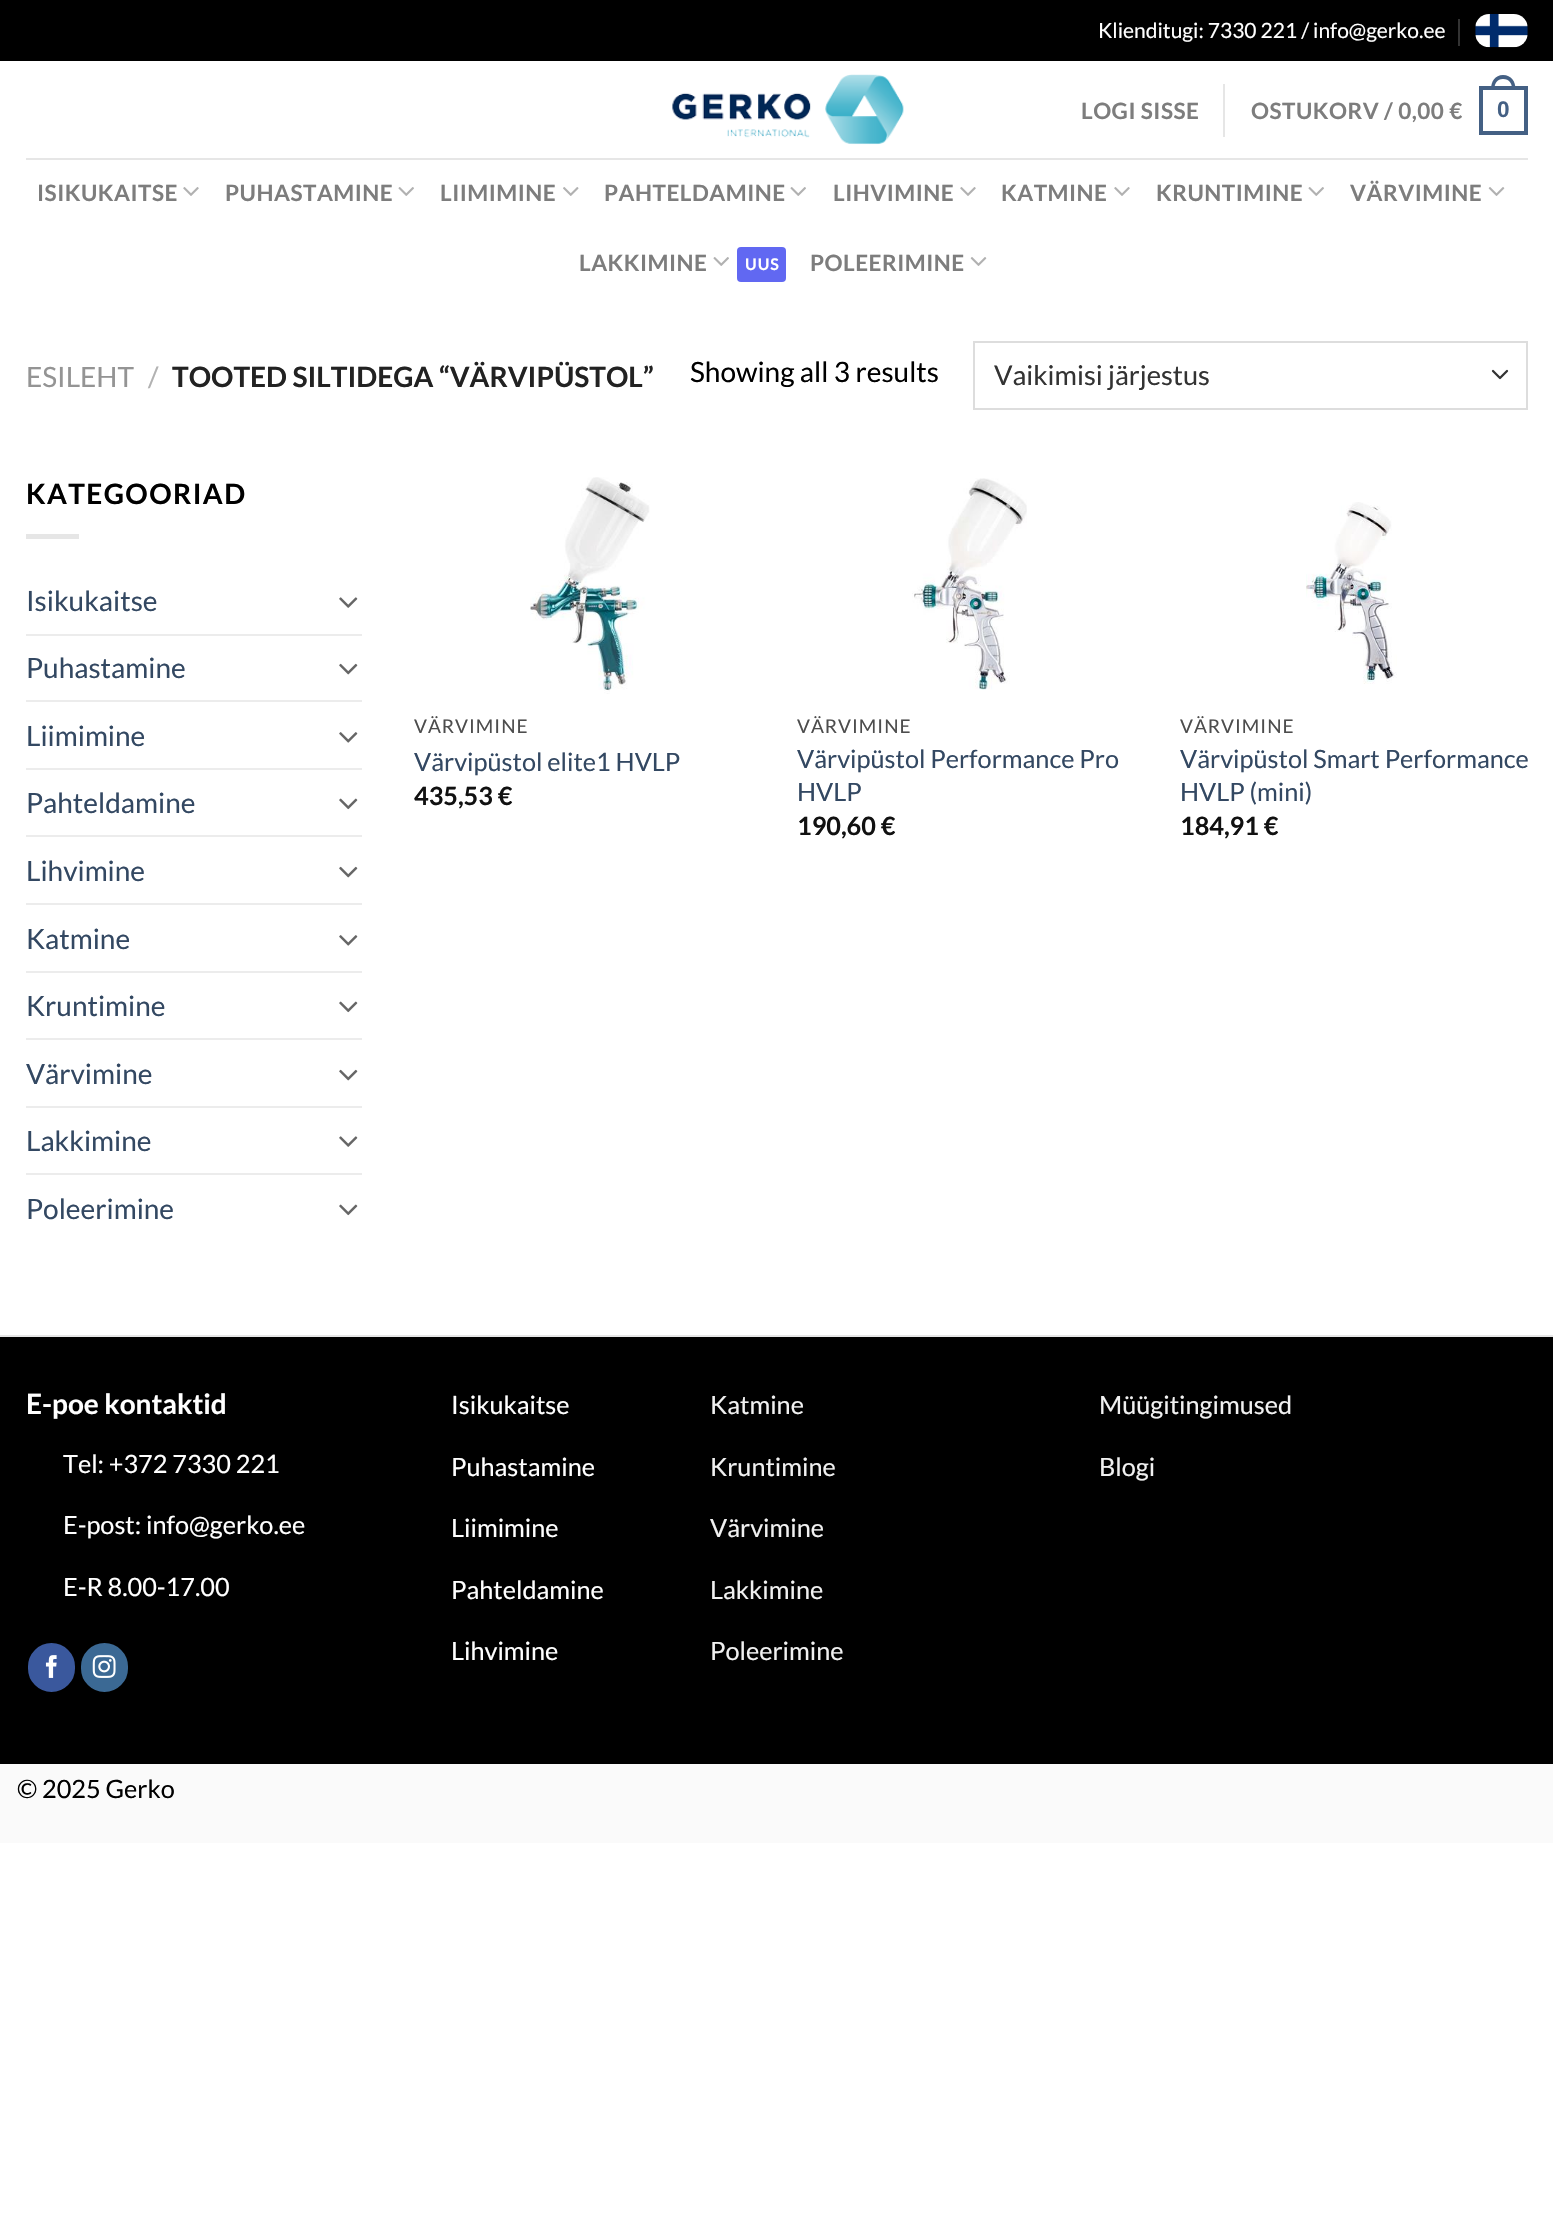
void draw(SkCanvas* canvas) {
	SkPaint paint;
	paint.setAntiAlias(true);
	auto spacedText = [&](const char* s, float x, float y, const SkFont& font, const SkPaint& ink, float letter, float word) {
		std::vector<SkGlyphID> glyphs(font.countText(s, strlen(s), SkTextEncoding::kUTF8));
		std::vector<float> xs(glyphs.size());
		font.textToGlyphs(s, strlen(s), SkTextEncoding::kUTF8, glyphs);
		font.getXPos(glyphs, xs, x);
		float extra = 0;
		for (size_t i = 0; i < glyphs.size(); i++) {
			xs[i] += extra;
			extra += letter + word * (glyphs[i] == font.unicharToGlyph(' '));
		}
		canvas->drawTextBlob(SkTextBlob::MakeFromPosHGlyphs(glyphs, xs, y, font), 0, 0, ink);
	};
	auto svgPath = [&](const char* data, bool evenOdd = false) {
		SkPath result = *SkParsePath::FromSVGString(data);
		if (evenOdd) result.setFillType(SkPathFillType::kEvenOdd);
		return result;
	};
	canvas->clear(0xffffffff);
	paint.setColor(0xff000000);
	canvas->drawRect(SkRect::MakeXYWH(0, 0, 1553, 61), paint);
	SkFont f1(fontMgr->matchFamilyStyle("Lato", SkFontStyle::Normal()), 21);
	f1.setSubpixel(true);
	paint.setColor(0xffffffff);
	canvas->drawString("Klienditugi: 7330 221 / info@gerko.ee", 1098, 38, f1, paint);
	paint.setColor(0xff333333);
	canvas->drawRect(SkRect::MakeXYWH(1458, 19, 2, 27), paint);
	canvas->drawImageRect(SkImages::DeferredFromEncodedData(SkData::MakeFromFileName("img1.png")), SkRect::MakeXYWH(1475, 14, 53, 34), SkSamplingOptions());
	canvas->drawImageRect(SkImages::DeferredFromEncodedData(SkData::MakeFromFileName("img2.png")), SkRect::MakeXYWH(672, 74, 232, 71), SkSamplingOptions());
	SkFont f2(fontMgr->matchFamilyStyle("Lato", SkFontStyle::Bold()), 22.5);
	f2.setSubpixel(true);
	paint.setColor(0xff7d7d7d);
	spacedText("LOGI SISSE", 1081, 119, f2, paint, 0.5, 0);
	paint.setColor(0xffe6e6e6);
	canvas->drawRect(SkRect::MakeXYWH(1223, 84, 2, 53), paint);
	paint.setColor(0xff7d7d7d);
	spacedText("OSTUKORV / 0,00 €", 1251, 119, f2, paint, 0.5, 0);
	paint.setStroke(true);
	paint.setStrokeWidth(4);
	paint.setColor(0xff446084);
	canvas->drawRect(SkRect::MakeXYWH(1481, 88, 45, 45), paint);
	paint.setStroke(false);
	canvas->drawPath(svgPath("M1503 75C1511.5 75 1515.5 81.5 1515.5 89H1491C1491 81.5 1495 75 1503 75ZM1503 79C1509.5 79 1512 83.5 1512 89H1494.5C1494.5 83.5 1497 79 1503 79Z", true), paint);
	SkFont f3(fontMgr->matchFamilyStyle("Liberation Sans", SkFontStyle::Bold()), 22.5);
	f3.setSubpixel(true);
	spacedText("0", 1497, 117, f3, paint, 0.5, 0);
	paint.setColor(0xffe6e6e6);
	canvas->drawRect(SkRect::MakeXYWH(26, 158, 1502, 2), paint);
	paint.setColor(0xff7d7d7d);
	spacedText("ISIKUKAITSE", 37, 201, f2, paint, 0.5, 0);
	canvas->drawImageRect(SkImages::DeferredFromEncodedData(SkData::MakeFromFileName("img3.png")), SkRect::MakeXYWH(183, 187, 16, 9), SkSamplingOptions());
	spacedText("PUHASTAMINE", 225, 201, f2, paint, 0.5, 0);
	canvas->drawImageRect(SkImages::DeferredFromEncodedData(SkData::MakeFromFileName("img4.png")), SkRect::MakeXYWH(398, 187, 16, 9), SkSamplingOptions());
	spacedText("LIIMIMINE", 440, 201, f2, paint, 0.5, 0);
	canvas->drawImageRect(SkImages::DeferredFromEncodedData(SkData::MakeFromFileName("img5.png")), SkRect::MakeXYWH(563, 187, 16, 9), SkSamplingOptions());
	spacedText("PAHTELDAMINE", 604, 201, f2, paint, 0.5, 0);
	canvas->drawImageRect(SkImages::DeferredFromEncodedData(SkData::MakeFromFileName("img4.png")), SkRect::MakeXYWH(790, 187, 16, 9), SkSamplingOptions());
	spacedText("LIHVIMINE", 833, 201, f2, paint, 0.5, 0);
	canvas->drawImageRect(SkImages::DeferredFromEncodedData(SkData::MakeFromFileName("img3.png")), SkRect::MakeXYWH(960, 187, 16, 9), SkSamplingOptions());
	spacedText("KATMINE", 1001, 201, f2, paint, 0.5, 0);
	canvas->drawImageRect(SkImages::DeferredFromEncodedData(SkData::MakeFromFileName("img3.png")), SkRect::MakeXYWH(1114, 187, 16, 9), SkSamplingOptions());
	spacedText("KRUNTIMINE", 1156, 201, f2, paint, 0.5, 0);
	canvas->drawImageRect(SkImages::DeferredFromEncodedData(SkData::MakeFromFileName("img4.png")), SkRect::MakeXYWH(1308, 187, 16, 9), SkSamplingOptions());
	spacedText("VÄRVIMINE", 1350, 201, f2, paint, 0.5, 0);
	canvas->drawImageRect(SkImages::DeferredFromEncodedData(SkData::MakeFromFileName("img6.png")), SkRect::MakeXYWH(1488, 187, 17, 9), SkSamplingOptions());
	spacedText("LAKKIMINE", 579, 271, f2, paint, 0.5, 0);
	canvas->drawImageRect(SkImages::DeferredFromEncodedData(SkData::MakeFromFileName("img4.png")), SkRect::MakeXYWH(713, 257, 16, 9), SkSamplingOptions());
	paint.setColor(0xff6168f2);
	canvas->drawRoundRect(SkRect::MakeXYWH(737, 247, 49, 35), 4, 4, paint);
	SkFont f4(fontMgr->matchFamilyStyle("Lato", SkFontStyle::Bold()), 16);
	f4.setSubpixel(true);
	paint.setColor(0xffffffff);
	spacedText("UUS", 745, 270, f4, paint, 1, 0);
	paint.setColor(0xff7d7d7d);
	spacedText("POLEERIMINE", 810, 271, f2, paint, 0.5, 0);
	canvas->drawImageRect(SkImages::DeferredFromEncodedData(SkData::MakeFromFileName("img6.png")), SkRect::MakeXYWH(970, 257, 17, 9), SkSamplingOptions());
	SkFont f5(fontMgr->matchFamilyStyle("Lato", SkFontStyle::Normal()), 28);
	f5.setSubpixel(true);
	paint.setColor(0xff949494);
	canvas->drawString("ESILEHT", 26, 387, f5, paint);
	paint.setColor(0xffb2b2b2);
	canvas->drawString("/", 148, 387, f5, paint);
	SkFont f6(fontMgr->matchFamilyStyle("Lato", SkFontStyle::Bold()), 28);
	f6.setSubpixel(true);
	paint.setColor(0xff222222);
	canvas->drawString("TOOTED SILTIDEGA “VÄRVIPÜSTOL”", 172, 387, f6, paint);
	paint.setColor(0xff000000);
	canvas->drawString("Showing all 3 results", 690, 382, f5, paint);
	paint.setStroke(true);
	paint.setStrokeWidth(2.3);
	paint.setStrokeCap(SkPaint::kRound_Cap);
	paint.setStrokeJoin(SkPaint::kRound_Join);
	paint.setColor(0xff333333);
	canvas->drawPath(svgPath("M1493 371L1500 378L1507 371"), paint);
	paint.setStrokeWidth(2);
	paint.setStrokeCap(SkPaint::kButt_Cap);
	paint.setStrokeJoin(SkPaint::kMiter_Join);
	paint.setColor(0xffdddddd);
	canvas->drawRect(SkRect::MakeXYWH(974, 342, 553, 67), paint);
	SkFont f7(fontMgr->matchFamilyStyle("Lato", SkFontStyle::Normal()), 27.25);
	f7.setSubpixel(true);
	paint.setStroke(false);
	paint.setColor(0xff333333);
	canvas->drawString("Vaikimisi järjestus", 994, 385, f7, paint);
	paint.setColor(0xff000000);
	spacedText("KATEGOORIAD", 26, 504, f6, paint, 1.4, 0);
	paint.setColor(0xffe6e6e6);
	canvas->drawRect(SkRect::MakeXYWH(26, 534, 53, 5), paint);
	paint.setColor(0xff334862);
	canvas->drawString("Isikukaitse", 26, 611, f5, paint);
	canvas->drawImageRect(SkImages::DeferredFromEncodedData(SkData::MakeFromFileName("img7.png")), SkRect::MakeXYWH(339, 597, 19, 11), SkSamplingOptions());
	paint.setColor(0xffececec);
	canvas->drawRect(SkRect::MakeXYWH(26, 634, 336, 2), paint);
	paint.setColor(0xff334862);
	canvas->drawString("Puhastamine", 26, 678, f5, paint);
	canvas->drawImageRect(SkImages::DeferredFromEncodedData(SkData::MakeFromFileName("img8.png")), SkRect::MakeXYWH(339, 663, 19, 12), SkSamplingOptions());
	paint.setColor(0xffececec);
	canvas->drawRect(SkRect::MakeXYWH(26, 700, 336, 2), paint);
	paint.setColor(0xff334862);
	canvas->drawString("Liimimine", 26, 746, f5, paint);
	canvas->drawImageRect(SkImages::DeferredFromEncodedData(SkData::MakeFromFileName("img9.png")), SkRect::MakeXYWH(339, 732, 19, 11), SkSamplingOptions());
	paint.setColor(0xffececec);
	canvas->drawRect(SkRect::MakeXYWH(26, 768, 336, 2), paint);
	paint.setColor(0xff334862);
	canvas->drawString("Pahteldamine", 26, 813, f5, paint);
	canvas->drawImageRect(SkImages::DeferredFromEncodedData(SkData::MakeFromFileName("img10.png")), SkRect::MakeXYWH(339, 798, 19, 12), SkSamplingOptions());
	paint.setColor(0xffececec);
	canvas->drawRect(SkRect::MakeXYWH(26, 835, 336, 2), paint);
	paint.setColor(0xff334862);
	canvas->drawString("Lihvimine", 26, 881, f5, paint);
	canvas->drawImageRect(SkImages::DeferredFromEncodedData(SkData::MakeFromFileName("img8.png")), SkRect::MakeXYWH(339, 866, 19, 12), SkSamplingOptions());
	paint.setColor(0xffececec);
	canvas->drawRect(SkRect::MakeXYWH(26, 903, 336, 2), paint);
	paint.setColor(0xff334862);
	canvas->drawString("Katmine", 26, 949, f5, paint);
	canvas->drawImageRect(SkImages::DeferredFromEncodedData(SkData::MakeFromFileName("img9.png")), SkRect::MakeXYWH(339, 935, 19, 11), SkSamplingOptions());
	paint.setColor(0xffececec);
	canvas->drawRect(SkRect::MakeXYWH(26, 971, 336, 2), paint);
	paint.setColor(0xff334862);
	canvas->drawString("Kruntimine", 26, 1016, f5, paint);
	canvas->drawImageRect(SkImages::DeferredFromEncodedData(SkData::MakeFromFileName("img10.png")), SkRect::MakeXYWH(339, 1001, 19, 12), SkSamplingOptions());
	paint.setColor(0xffececec);
	canvas->drawRect(SkRect::MakeXYWH(26, 1038, 336, 2), paint);
	paint.setColor(0xff334862);
	canvas->drawString("Värvimine", 26, 1084, f5, paint);
	canvas->drawImageRect(SkImages::DeferredFromEncodedData(SkData::MakeFromFileName("img8.png")), SkRect::MakeXYWH(339, 1069, 19, 12), SkSamplingOptions());
	paint.setColor(0xffececec);
	canvas->drawRect(SkRect::MakeXYWH(26, 1106, 336, 2), paint);
	paint.setColor(0xff334862);
	canvas->drawString("Lakkimine", 26, 1151, f5, paint);
	canvas->drawImageRect(SkImages::DeferredFromEncodedData(SkData::MakeFromFileName("img7.png")), SkRect::MakeXYWH(339, 1136, 19, 11), SkSamplingOptions());
	paint.setColor(0xffececec);
	canvas->drawRect(SkRect::MakeXYWH(26, 1173, 336, 2), paint);
	paint.setColor(0xff334862);
	canvas->drawString("Poleerimine", 26, 1219, f5, paint);
	canvas->drawImageRect(SkImages::DeferredFromEncodedData(SkData::MakeFromFileName("img10.png")), SkRect::MakeXYWH(339, 1204, 19, 12), SkSamplingOptions());
	canvas->drawImageRect(SkImages::DeferredFromEncodedData(SkData::MakeFromFileName("img11.png")), SkRect::MakeXYWH(530, 477, 120, 217), SkSamplingOptions());
	SkFont f8(fontMgr->matchFamilyStyle("Lato", SkFontStyle::Normal()), 19);
	f8.setSubpixel(true);
	paint.setColor(0xff4d4d4d);
	spacedText("VÄRVIMINE", 414, 733, f8, paint, 1, 0);
	SkFont f9(fontMgr->matchFamilyStyle("Lato", SkFontStyle::Normal()), 25.25);
	f9.setSubpixel(true);
	paint.setColor(0xff334862);
	canvas->drawString("Värvipüstol elite1 HVLP", 414, 771, f9, paint);
	SkFont f10(fontMgr->matchFamilyStyle("Lato", SkFontStyle::Bold()), 25.25);
	f10.setSubpixel(true);
	paint.setColor(0xff111111);
	canvas->drawString("435,53 €", 414, 805, f10, paint);
	canvas->drawImageRect(SkImages::DeferredFromEncodedData(SkData::MakeFromFileName("img12.png")), SkRect::MakeXYWH(912, 478, 115, 212), SkSamplingOptions());
	paint.setColor(0xff4d4d4d);
	spacedText("VÄRVIMINE", 797, 733, f8, paint, 1, 0);
	paint.setColor(0xff334862);
	canvas->drawString("Värvipüstol Performance Pro", 797, 768, f9, paint);
	canvas->drawString("HVLP", 797, 801, f9, paint);
	paint.setColor(0xff111111);
	canvas->drawString("190,60 €", 797, 835, f10, paint);
	canvas->drawImageRect(SkImages::DeferredFromEncodedData(SkData::MakeFromFileName("img13.png")), SkRect::MakeXYWH(1306, 502, 91, 182), SkSamplingOptions());
	paint.setColor(0xff4d4d4d);
	spacedText("VÄRVIMINE", 1180, 733, f8, paint, 1, 0);
	paint.setColor(0xff334862);
	canvas->drawString("Värvipüstol Smart Performance", 1180, 768, f9, paint);
	canvas->drawString("HVLP (mini)", 1180, 801, f9, paint);
	paint.setColor(0xff111111);
	canvas->drawString("184,91 €", 1180, 835, f10, paint);
	paint.setColor(0xffe6e6e6);
	canvas->drawRect(SkRect::MakeXYWH(0, 1335, 1553, 2), paint);
	paint.setColor(0xff000000);
	canvas->drawRect(SkRect::MakeXYWH(0, 1337, 1553, 427), paint);
	paint.setColor(0xffffffff);
	canvas->drawString("E-poe kontaktid", 26, 1414, f6, paint);
	canvas->drawString("Tel: +372 7330 221", 63, 1473, f9, paint);
	canvas->drawString("E-post: info@gerko.ee", 63, 1534, f9, paint);
	canvas->drawString("E-R 8.00-17.00", 63, 1596, f9, paint);
	paint.setColor(0xff3a589d);
	canvas->drawRoundRect(SkRect::MakeXYWH(29, 1644, 45, 47), 22.5, 22.5, paint);
	paint.setStroke(true);
	canvas->drawRoundRect(SkRect::MakeXYWH(29, 1644, 45, 47), 22.5, 22.5, paint);
	canvas->drawImageRect(SkImages::DeferredFromEncodedData(SkData::MakeFromFileName("img14.png")), SkRect::MakeXYWH(45, 1655, 12, 23), SkSamplingOptions());
	paint.setStroke(false);
	paint.setColor(0xff3b6994);
	canvas->drawRoundRect(SkRect::MakeXYWH(82, 1644, 45, 47), 22.5, 22.5, paint);
	paint.setStroke(true);
	canvas->drawRoundRect(SkRect::MakeXYWH(82, 1644, 45, 47), 22.5, 22.5, paint);
	canvas->drawImageRect(SkImages::DeferredFromEncodedData(SkData::MakeFromFileName("img15.png")), SkRect::MakeXYWH(92, 1655, 24, 23), SkSamplingOptions());
	paint.setStroke(false);
	paint.setColor(0xffffffff);
	canvas->drawString("Isikukaitse", 451, 1414, f9, paint);
	canvas->drawString("Puhastamine", 451, 1476, f9, paint);
	canvas->drawString("Liimimine", 451, 1537, f9, paint);
	canvas->drawString("Pahteldamine", 451, 1599, f9, paint);
	canvas->drawString("Lihvimine", 451, 1660, f9, paint);
	paint.setColor(0xfff1f1f1);
	canvas->drawString("Katmine", 710, 1414, f9, paint);
	canvas->drawString("Kruntimine", 710, 1476, f9, paint);
	canvas->drawString("Värvimine", 710, 1537, f9, paint);
	canvas->drawString("Lakkimine", 710, 1599, f9, paint);
	canvas->drawString("Poleerimine", 710, 1660, f9, paint);
	canvas->drawString("Müügitingimused", 1099, 1414, f9, paint);
	canvas->drawString("Blogi", 1099, 1476, f9, paint);
	paint.setColor(0xfffafafa);
	canvas->drawRect(SkRect::MakeXYWH(0, 1764, 1553, 79), paint);
	paint.setColor(0xff000000);
	canvas->drawString("© 2025 Gerko", 17, 1798, f9, paint);
}
